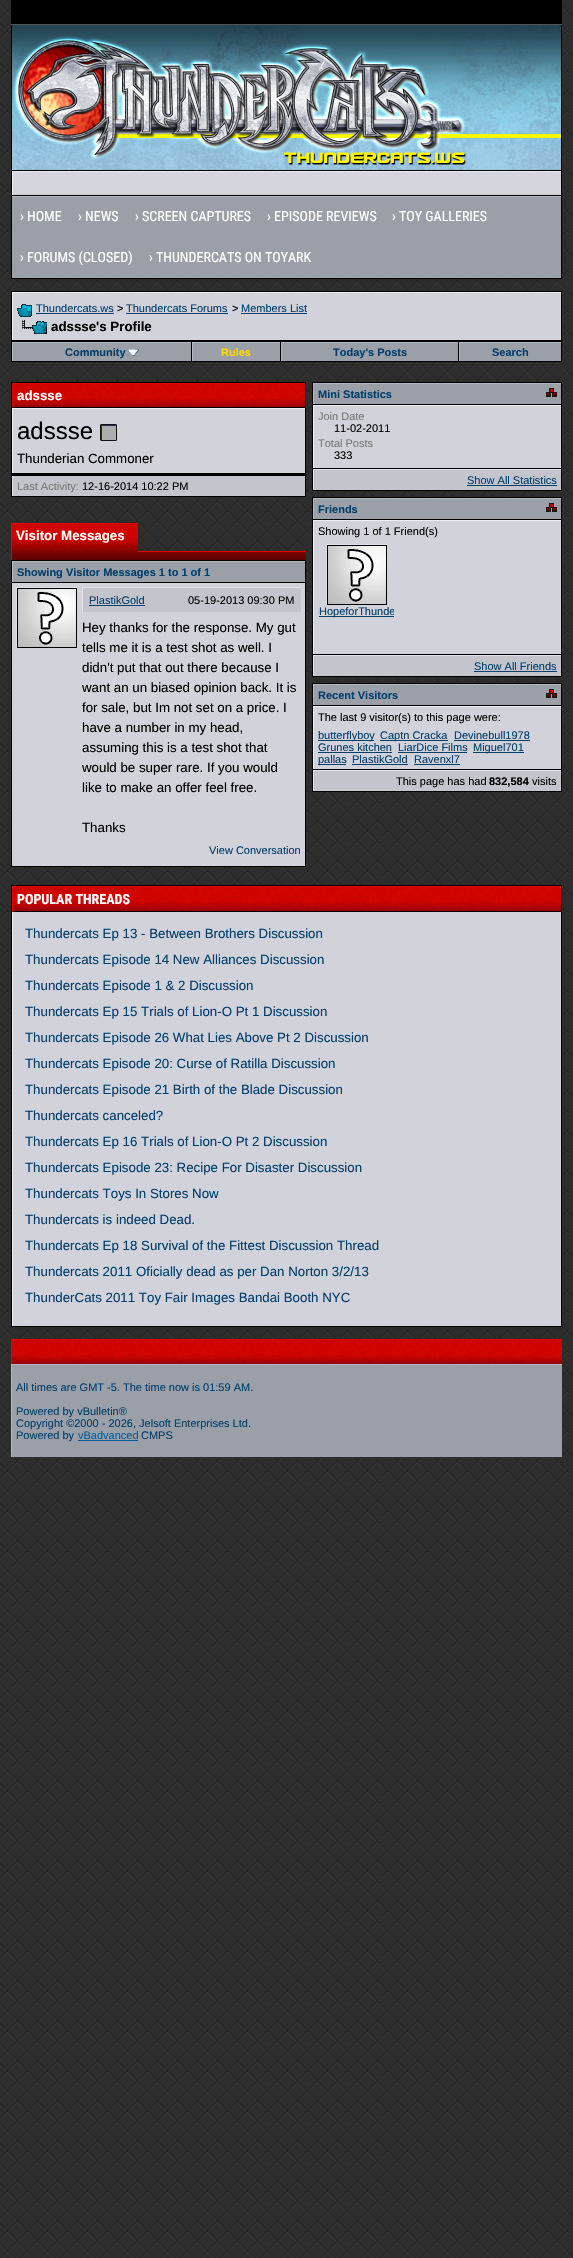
void draw(SkCanvas* canvas) {
	SkPaint paint;
	paint.setAntiAlias(true);
	auto svgPath = [&](const char* data, bool evenOdd = false) {
		SkPath result = *SkParsePath::FromSVGString(data);
		if (evenOdd) result.setFillType(SkPathFillType::kEvenOdd);
		return result;
	};
	canvas->clear(0xffffffff);
	canvas->drawImageRect(SkImages::DeferredFromEncodedData(SkData::MakeFromFileName("img1.png")), SkRect::MakeXYWH(0, 0, 573, 2258), SkSamplingOptions());
	paint.setColor(0xff000000);
	canvas->drawRect(SkRect::MakeXYWH(11, 0, 551, 24), paint);
	paint.setColor(0xff545454);
	canvas->drawRect(SkRect::MakeXYWH(11, 24, 551, 1), paint);
	canvas->drawImageRect(SkImages::DeferredFromEncodedData(SkData::MakeFromFileName("img2.png")), SkRect::MakeXYWH(467, 25, 94, 145), SkSamplingOptions());
	paint.setColor(0xff000000);
	canvas->drawRect(SkRect::MakeXYWH(561, 25, 1, 170), paint);
	canvas->drawRect(SkRect::MakeXYWH(11, 25, 1, 170), paint);
	canvas->drawImageRect(SkImages::DeferredFromEncodedData(SkData::MakeFromFileName("img3.png")), SkRect::MakeXYWH(12, 25, 455, 145), SkSamplingOptions());
	canvas->save();
	canvas->clipRect(SkRect::MakeXYWH(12, 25, 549, 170));
	paint.setColor(0xff29292b);
	paint.setMaskFilter(SkMaskFilter::MakeBlur(kNormal_SkBlurStyle, 2.5));
	canvas->drawRect(SkRect::MakeXYWH(16, 174, 547, 23), paint);
	paint.setMaskFilter(nullptr);
	canvas->restore();
	paint.setColor(0xffd5d5de);
	canvas->drawRect(SkRect::MakeXYWH(13, 172, 548, 23), paint);
	canvas->save();
	canvas->clipRect(SkRect::MakeXYWH(12, 171, 549, 24));
	paint.setColor(0xffededf7);
	canvas->drawPath(svgPath("M-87 72H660V294H-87ZM13 172H562V196H13Z", true), paint);
	canvas->restore();
	paint.setColor(0xff000000);
	canvas->drawRect(SkRect::MakeXYWH(12, 170, 549, 1), paint);
	paint.setColor(0xff29292b);
	paint.setMaskFilter(SkMaskFilter::MakeBlur(kNormal_SkBlurStyle, 2.5));
	canvas->drawRect(SkRect::MakeXYWH(15, 199, 549, 82), paint);
	paint.setMaskFilter(nullptr);
	paint.setColor(0xff9b9fa8);
	canvas->drawRect(SkRect::MakeXYWH(12, 197, 549, 81), paint);
	paint.setColor(0xffb2b7c2);
	canvas->drawRect(SkRect::MakeXYWH(12, 196, 549, 1), paint);
	paint.setStroke(true);
	paint.setStrokeWidth(1);
	paint.setColor(0xff000000);
	canvas->drawRect(SkRect::MakeXYWH(11.5, 195.5, 550, 83), paint);
	SkFont f1(fontMgr->matchFamilyStyle("Roboto Condensed", SkFontStyle::Normal()), 14);
	f1.setSubpixel(true);
	paint.setStroke(false);
	paint.setColor(0xffffffff);
	canvas->drawString("› HOME", 20, 221, f1, paint);
	canvas->drawString("› NEWS", 78, 221, f1, paint);
	canvas->drawString("› SCREEN CAPTURES", 135, 221, f1, paint);
	canvas->drawString("› EPISODE REVIEWS", 267, 221, f1, paint);
	canvas->drawString("› TOY GALLERIES", 392, 221, f1, paint);
	canvas->drawString("› FORUMS (CLOSED)", 20, 262, f1, paint);
	canvas->drawString("› THUNDERCATS ON TOYARK", 149, 262, f1, paint);
	paint.setColor(0xff000000);
	canvas->drawRect(SkRect::MakeXYWH(11, 291, 551, 71), paint);
	paint.setColor(0xffd2d2da);
	canvas->drawRect(SkRect::MakeXYWH(13, 293, 548, 47), paint);
	paint.setColor(0xffededf7);
	canvas->drawRect(SkRect::MakeXYWH(12, 292, 549, 1), paint);
	canvas->drawRect(SkRect::MakeXYWH(12, 292, 1, 48), paint);
	canvas->drawImageRect(SkImages::DeferredFromEncodedData(SkData::MakeFromFileName("img4.png")), SkRect::MakeXYWH(17, 304, 15, 13), SkSamplingOptions());
	SkFont f2(fontMgr->matchFamilyStyle("Liberation Sans", SkFontStyle::Normal()), 11);
	f2.setSubpixel(true);
	paint.setColor(0xff003e6b);
	canvas->drawString("Thundercats.ws", 36, 312, f2, paint);
	canvas->drawRect(SkRect::MakeXYWH(36, 313, 78, 1), paint);
	paint.setColor(0xff000000);
	canvas->drawString(">", 117, 312, f2, paint);
	paint.setColor(0xff003e6b);
	canvas->drawString("Thundercats Forums", 126, 312, f2, paint);
	canvas->drawRect(SkRect::MakeXYWH(126, 313, 102, 1), paint);
	paint.setColor(0xff000000);
	canvas->drawString(">", 232, 312, f2, paint);
	paint.setColor(0xff003e6b);
	canvas->drawString("Members List", 241, 312, f2, paint);
	canvas->drawRect(SkRect::MakeXYWH(241, 313, 66, 1), paint);
	canvas->drawImageRect(SkImages::DeferredFromEncodedData(SkData::MakeFromFileName("img5.png")), SkRect::MakeXYWH(22, 320, 25, 14), SkSamplingOptions());
	SkFont f3(fontMgr->matchFamilyStyle("Liberation Sans", SkFontStyle::Bold()), 13.3);
	f3.setSubpixel(true);
	paint.setColor(0xff000000);
	canvas->drawString("adssse's Profile", 51, 331, f3, paint);
	paint.setColor(0xff9b9fa8);
	canvas->drawRect(SkRect::MakeXYWH(13, 343, 178, 18), paint);
	paint.setColor(0xffb2b7c2);
	canvas->drawRect(SkRect::MakeXYWH(12, 342, 179, 1), paint);
	canvas->drawRect(SkRect::MakeXYWH(12, 342, 1, 19), paint);
	SkFont f4(fontMgr->matchFamilyStyle("Liberation Sans", SkFontStyle::Bold()), 11);
	f4.setSubpixel(true);
	paint.setColor(0xff003e6b);
	canvas->drawString("Community", 65, 356, f4, paint);
	canvas->drawImageRect(SkImages::DeferredFromEncodedData(SkData::MakeFromFileName("img6.png")), SkRect::MakeXYWH(128, 349, 11, 7), SkSamplingOptions());
	paint.setColor(0xff9b9fa8);
	canvas->drawRect(SkRect::MakeXYWH(193, 343, 87, 18), paint);
	paint.setColor(0xffb2b7c2);
	canvas->drawRect(SkRect::MakeXYWH(192, 342, 88, 1), paint);
	canvas->drawRect(SkRect::MakeXYWH(192, 342, 1, 19), paint);
	paint.setColor(0xffffd800);
	canvas->drawString("Rules", 221, 356, f4, paint);
	paint.setColor(0xff9b9fa8);
	canvas->drawRect(SkRect::MakeXYWH(282, 343, 176, 18), paint);
	paint.setColor(0xffb2b7c2);
	canvas->drawRect(SkRect::MakeXYWH(281, 342, 177, 1), paint);
	canvas->drawRect(SkRect::MakeXYWH(281, 342, 1, 19), paint);
	paint.setColor(0xff003e6b);
	canvas->drawString("Today's Posts", 333, 356, f4, paint);
	paint.setColor(0xff9b9fa8);
	canvas->drawRect(SkRect::MakeXYWH(460, 343, 101, 18), paint);
	paint.setColor(0xffb2b7c2);
	canvas->drawRect(SkRect::MakeXYWH(459, 342, 102, 1), paint);
	canvas->drawRect(SkRect::MakeXYWH(459, 342, 1, 19), paint);
	paint.setColor(0xff003e6b);
	canvas->drawString("Search", 492, 356, f4, paint);
	paint.setColor(0xff000000);
	canvas->drawRect(SkRect::MakeXYWH(11, 382, 295, 115), paint);
	canvas->drawImageRect(SkImages::DeferredFromEncodedData(SkData::MakeFromFileName("img7.png")), SkRect::MakeXYWH(13, 384, 292, 23), SkSamplingOptions());
	paint.setColor(0xffe50400);
	canvas->drawRect(SkRect::MakeXYWH(12, 383, 293, 1), paint);
	canvas->drawRect(SkRect::MakeXYWH(12, 383, 1, 24), paint);
	paint.setColor(0xffffffff);
	canvas->drawString("adssse", 17, 400, f3, paint);
	paint.setColor(0xffd2d2da);
	canvas->drawRect(SkRect::MakeXYWH(13, 409, 292, 64), paint);
	paint.setColor(0xffededf7);
	canvas->drawRect(SkRect::MakeXYWH(12, 408, 293, 1), paint);
	canvas->drawRect(SkRect::MakeXYWH(12, 408, 1, 65), paint);
	SkFont f5(fontMgr->matchFamilyStyle("Liberation Sans", SkFontStyle::Normal()), 24);
	f5.setSubpixel(true);
	paint.setColor(0xff000000);
	canvas->drawString("adssse", 17, 439, f5, paint);
	canvas->drawImageRect(SkImages::DeferredFromEncodedData(SkData::MakeFromFileName("img8.png")), SkRect::MakeXYWH(100, 424, 17, 17), SkSamplingOptions());
	SkFont f6(fontMgr->matchFamilyStyle("Liberation Sans", SkFontStyle::Normal()), 13.3);
	f6.setSubpixel(true);
	canvas->drawString("Thunderian Commoner", 17, 463, f6, paint);
	paint.setColor(0xffc4c4cc);
	canvas->drawRect(SkRect::MakeXYWH(13, 476, 292, 20), paint);
	paint.setColor(0xffe1e1eb);
	canvas->drawRect(SkRect::MakeXYWH(12, 476, 1, 20), paint);
	paint.setColor(0xff777777);
	canvas->drawString("Last Activity:", 17, 490, f2, paint);
	paint.setColor(0xff000000);
	canvas->drawString("12-16-2014 10:22 PM", 82, 490, f2, paint);
	canvas->drawImageRect(SkImages::DeferredFromEncodedData(SkData::MakeFromFileName("img9.png")), SkRect::MakeXYWH(12, 524, 126, 28), SkSamplingOptions());
	paint.setColor(0xffe50400);
	canvas->drawRect(SkRect::MakeXYWH(11, 523, 127, 1), paint);
	canvas->drawRect(SkRect::MakeXYWH(11, 551, 1, 9), paint);
	canvas->drawRect(SkRect::MakeXYWH(11, 523, 1, 29), paint);
	paint.setColor(0xffffffff);
	canvas->drawString("Visitor Messages", 16, 540, f3, paint);
	canvas->drawImageRect(SkImages::DeferredFromEncodedData(SkData::MakeFromFileName("img10.png")), SkRect::MakeXYWH(12, 552, 294, 8), SkSamplingOptions());
	paint.setColor(0xffe50400);
	canvas->drawRect(SkRect::MakeXYWH(138, 551, 168, 1), paint);
	paint.setColor(0xff000000);
	canvas->drawRect(SkRect::MakeXYWH(11, 560, 295, 307), paint);
	paint.setColor(0xff9b9fa8);
	canvas->drawRect(SkRect::MakeXYWH(13, 562, 292, 20), paint);
	paint.setColor(0xffb2b7c2);
	canvas->drawRect(SkRect::MakeXYWH(12, 561, 293, 1), paint);
	canvas->drawRect(SkRect::MakeXYWH(12, 561, 1, 21), paint);
	paint.setColor(0xff003e6b);
	canvas->drawString("Showing Visitor Messages 1 to 1 of 1", 17, 576, f4, paint);
	paint.setColor(0xffd2d2da);
	canvas->drawRect(SkRect::MakeXYWH(12, 583, 293, 283), paint);
	paint.setColor(0xffe1e1eb);
	canvas->drawRect(SkRect::MakeXYWH(16, 587, 61, 1), paint);
	canvas->drawRect(SkRect::MakeXYWH(16, 587, 1, 61), paint);
	canvas->drawImageRect(SkImages::DeferredFromEncodedData(SkData::MakeFromFileName("img11.png")), SkRect::MakeXYWH(17, 588, 60, 60), SkSamplingOptions());
	paint.setColor(0xffc4c4cc);
	canvas->drawRect(SkRect::MakeXYWH(83, 588, 218, 24), paint);
	paint.setColor(0xffe1e1eb);
	canvas->drawRect(SkRect::MakeXYWH(82, 587, 219, 1), paint);
	canvas->drawRect(SkRect::MakeXYWH(82, 587, 1, 25), paint);
	paint.setColor(0xff003e6b);
	canvas->drawString("PlastikGold", 89, 604, f2, paint);
	canvas->drawRect(SkRect::MakeXYWH(89, 605, 56, 1), paint);
	paint.setColor(0xff000000);
	canvas->drawString("05-19-2013 09:30 PM", 188, 604, f2, paint);
	canvas->drawString("Hey thanks for the response. My gut", 82, 632, f6, paint);
	canvas->drawString("tells me it is a test shot as well. I", 82, 652, f6, paint);
	canvas->drawString("didn't put that out there because I", 82, 672, f6, paint);
	canvas->drawString("want an un biased opinion back. It is", 82, 692, f6, paint);
	canvas->drawString("for sale, but Im not set on a price. I", 82, 712, f6, paint);
	canvas->drawString("have a number in my head,", 82, 732, f6, paint);
	canvas->drawString("assuming this is a test shot that", 82, 752, f6, paint);
	canvas->drawString("would be super rare. If you would", 82, 772, f6, paint);
	canvas->drawString("like to make an offer feel free.", 82, 792, f6, paint);
	canvas->drawString("Thanks", 82, 832, f6, paint);
	paint.setColor(0xff003e6b);
	canvas->drawString("View Conversation", 209, 854, f2, paint);
	paint.setColor(0xff000000);
	canvas->drawRect(SkRect::MakeXYWH(312, 382, 250, 109), paint);
	paint.setColor(0xff9b9fa8);
	canvas->drawRect(SkRect::MakeXYWH(314, 384, 247, 20), paint);
	paint.setColor(0xffb2b7c2);
	canvas->drawRect(SkRect::MakeXYWH(313, 383, 248, 1), paint);
	canvas->drawRect(SkRect::MakeXYWH(313, 383, 1, 21), paint);
	paint.setColor(0xff003e6b);
	canvas->drawString("Mini Statistics", 318, 398, f4, paint);
	canvas->drawImageRect(SkImages::DeferredFromEncodedData(SkData::MakeFromFileName("img12.png")), SkRect::MakeXYWH(546, 388, 11, 9), SkSamplingOptions());
	paint.setColor(0xffd2d2da);
	canvas->drawRect(SkRect::MakeXYWH(314, 406, 247, 62), paint);
	paint.setColor(0xffededf7);
	canvas->drawRect(SkRect::MakeXYWH(313, 405, 248, 1), paint);
	canvas->drawRect(SkRect::MakeXYWH(313, 405, 1, 63), paint);
	paint.setColor(0xff777777);
	canvas->drawString("Join Date", 318, 420, f2, paint);
	paint.setColor(0xff000000);
	canvas->drawString("11-02-2011", 334, 432, f2, paint);
	paint.setColor(0xff777777);
	canvas->drawString("Total Posts", 318, 447, f2, paint);
	paint.setColor(0xff000000);
	canvas->drawString("333", 334, 459, f2, paint);
	paint.setColor(0xffc4c4cc);
	canvas->drawRect(SkRect::MakeXYWH(314, 470, 247, 20), paint);
	paint.setColor(0xffe1e1eb);
	canvas->drawRect(SkRect::MakeXYWH(313, 469, 248, 1), paint);
	canvas->drawRect(SkRect::MakeXYWH(313, 469, 1, 21), paint);
	paint.setColor(0xff003e6b);
	canvas->drawString("Show All Statistics", 467, 484, f2, paint);
	canvas->drawRect(SkRect::MakeXYWH(467, 485, 90, 1), paint);
	paint.setColor(0xff000000);
	canvas->drawRect(SkRect::MakeXYWH(312, 497, 250, 180), paint);
	paint.setColor(0xff9b9fa8);
	canvas->drawRect(SkRect::MakeXYWH(314, 499, 247, 20), paint);
	paint.setColor(0xffb2b7c2);
	canvas->drawRect(SkRect::MakeXYWH(313, 498, 248, 1), paint);
	canvas->drawRect(SkRect::MakeXYWH(313, 498, 1, 21), paint);
	paint.setColor(0xff003e6b);
	canvas->drawString("Friends", 318, 513, f4, paint);
	canvas->drawImageRect(SkImages::DeferredFromEncodedData(SkData::MakeFromFileName("img12.png")), SkRect::MakeXYWH(546, 503, 11, 9), SkSamplingOptions());
	paint.setColor(0xffd2d2da);
	canvas->drawRect(SkRect::MakeXYWH(314, 521, 247, 133), paint);
	paint.setColor(0xffededf7);
	canvas->drawRect(SkRect::MakeXYWH(313, 520, 248, 1), paint);
	canvas->drawRect(SkRect::MakeXYWH(313, 520, 1, 134), paint);
	paint.setColor(0xff000000);
	canvas->drawString("Showing 1 of 1 Friend(s)", 318, 535, f2, paint);
	paint.setColor(0xffe1e1eb);
	canvas->drawRect(SkRect::MakeXYWH(326, 544, 61, 1), paint);
	canvas->drawRect(SkRect::MakeXYWH(326, 544, 1, 61), paint);
	canvas->drawImageRect(SkImages::DeferredFromEncodedData(SkData::MakeFromFileName("img11.png")), SkRect::MakeXYWH(327, 545, 60, 60), SkSamplingOptions());
	paint.setColor(0xff003e6b);
	canvas->drawRect(SkRect::MakeXYWH(319, 616, 75, 1), paint);
	canvas->save();
	canvas->clipRect(SkRect::MakeXYWH(319, 544, 75, 105));
	canvas->drawString("HopeforThunde", 319, 615, f2, paint);
	canvas->restore();
	paint.setColor(0xffc4c4cc);
	canvas->drawRect(SkRect::MakeXYWH(314, 656, 247, 20), paint);
	paint.setColor(0xffe1e1eb);
	canvas->drawRect(SkRect::MakeXYWH(313, 655, 248, 1), paint);
	canvas->drawRect(SkRect::MakeXYWH(313, 655, 1, 21), paint);
	paint.setColor(0xff003e6b);
	canvas->drawString("Show All Friends", 474, 670, f2, paint);
	canvas->drawRect(SkRect::MakeXYWH(474, 671, 83, 1), paint);
	paint.setColor(0xff000000);
	canvas->drawRect(SkRect::MakeXYWH(312, 683, 250, 109), paint);
	paint.setColor(0xff9b9fa8);
	canvas->drawRect(SkRect::MakeXYWH(314, 685, 247, 20), paint);
	paint.setColor(0xffb2b7c2);
	canvas->drawRect(SkRect::MakeXYWH(313, 684, 248, 1), paint);
	canvas->drawRect(SkRect::MakeXYWH(313, 684, 1, 21), paint);
	paint.setColor(0xff003e6b);
	canvas->drawString("Recent Visitors", 318, 699, f4, paint);
	canvas->drawImageRect(SkImages::DeferredFromEncodedData(SkData::MakeFromFileName("img12.png")), SkRect::MakeXYWH(546, 689, 11, 9), SkSamplingOptions());
	paint.setColor(0xffd2d2da);
	canvas->drawRect(SkRect::MakeXYWH(314, 707, 247, 62), paint);
	paint.setColor(0xffededf7);
	canvas->drawRect(SkRect::MakeXYWH(313, 706, 248, 1), paint);
	canvas->drawRect(SkRect::MakeXYWH(313, 706, 1, 63), paint);
	paint.setColor(0xff000000);
	canvas->drawString("The last 9 visitor(s) to this page were:", 318, 721, f2, paint);
	paint.setColor(0xff003e6b);
	canvas->drawRect(SkRect::MakeXYWH(318, 740, 56, 1), paint);
	canvas->drawString("butterflyboy", 318, 739, f2, paint);
	canvas->drawRect(SkRect::MakeXYWH(380, 740, 68, 1), paint);
	canvas->drawString("Captn Cracka", 380, 739, f2, paint);
	canvas->drawString("Devinebull1978", 454, 739, f2, paint);
	canvas->drawRect(SkRect::MakeXYWH(454, 740, 76, 1), paint);
	canvas->drawString("Grunes kitchen", 318, 751, f2, paint);
	canvas->drawRect(SkRect::MakeXYWH(318, 752, 74, 1), paint);
	canvas->drawString("LiarDice Films", 398, 751, f2, paint);
	canvas->drawRect(SkRect::MakeXYWH(398, 752, 69, 1), paint);
	canvas->drawRect(SkRect::MakeXYWH(473, 752, 51, 1), paint);
	canvas->drawString("Miguel701", 473, 751, f2, paint);
	canvas->drawRect(SkRect::MakeXYWH(318, 764, 28, 1), paint);
	canvas->drawString("pallas", 318, 763, f2, paint);
	canvas->drawString("PlastikGold", 352, 763, f2, paint);
	canvas->drawRect(SkRect::MakeXYWH(352, 764, 56, 1), paint);
	canvas->drawString("Ravenxl7", 414, 763, f2, paint);
	canvas->drawRect(SkRect::MakeXYWH(414, 764, 46, 1), paint);
	paint.setColor(0xffc4c4cc);
	canvas->drawRect(SkRect::MakeXYWH(314, 771, 247, 20), paint);
	paint.setColor(0xffe1e1eb);
	canvas->drawRect(SkRect::MakeXYWH(313, 770, 248, 1), paint);
	canvas->drawRect(SkRect::MakeXYWH(313, 770, 1, 21), paint);
	paint.setColor(0xff000000);
	canvas->drawString("This page has had", 396, 785, f2, paint);
	canvas->drawString("832,584", 489, 785, f4, paint);
	canvas->drawString("visits", 532, 785, f2, paint);
	paint.setColor(0xff29292b);
	paint.setMaskFilter(SkMaskFilter::MakeBlur(kNormal_SkBlurStyle, 2.5));
	canvas->drawRect(SkRect::MakeXYWH(15, 889, 549, 440), paint);
	paint.setMaskFilter(nullptr);
	paint.setColor(0xff000000);
	canvas->drawRect(SkRect::MakeXYWH(11, 885, 551, 442), paint);
	canvas->drawImageRect(SkImages::DeferredFromEncodedData(SkData::MakeFromFileName("img13.png")), SkRect::MakeXYWH(13, 887, 548, 24), SkSamplingOptions());
	paint.setColor(0xffe50400);
	canvas->drawRect(SkRect::MakeXYWH(12, 886, 549, 1), paint);
	canvas->drawRect(SkRect::MakeXYWH(12, 886, 1, 26), paint);
	SkFont f7(fontMgr->matchFamilyStyle("Roboto Condensed", SkFontStyle::Bold()), 14);
	f7.setSubpixel(true);
	paint.setColor(0xffffffff);
	canvas->drawString("POPULAR THREADS", 17, 904, f7, paint);
	paint.setColor(0xffd2d2da);
	canvas->drawRect(SkRect::MakeXYWH(12, 912, 549, 6), paint);
	paint.setColor(0xffededf7);
	canvas->drawRect(SkRect::MakeXYWH(12, 912, 1, 414), paint);
	paint.setColor(0xffd2d2da);
	canvas->drawRect(SkRect::MakeXYWH(13, 918, 548, 408), paint);
	paint.setColor(0xff003e6b);
	canvas->drawString("Thundercats Ep 13 - Between Brothers Discussion", 25, 938, f6, paint);
	canvas->drawString("Thundercats Episode 14 New Alliances Discussion", 25, 964, f6, paint);
	canvas->drawString("Thundercats Episode 1 & 2 Discussion", 25, 990, f6, paint);
	canvas->drawString("Thundercats Ep 15 Trials of Lion-O Pt 1 Discussion", 25, 1016, f6, paint);
	canvas->drawString("Thundercats Episode 26 What Lies Above Pt 2 Discussion", 25, 1042, f6, paint);
	canvas->drawString("Thundercats Episode 20: Curse of Ratilla Discussion", 25, 1068, f6, paint);
	canvas->drawString("Thundercats Episode 21 Birth of the Blade Discussion", 25, 1094, f6, paint);
	canvas->drawString("Thundercats canceled?", 25, 1120, f6, paint);
	canvas->drawString("Thundercats Ep 16 Trials of Lion-O Pt 2 Discussion", 25, 1146, f6, paint);
	canvas->drawString("Thundercats Episode 23: Recipe For Disaster Discussion", 25, 1172, f6, paint);
	canvas->drawString("Thundercats Toys In Stores Now", 25, 1198, f6, paint);
	canvas->drawString("Thundercats is indeed Dead.", 25, 1224, f6, paint);
	canvas->drawString("Thundercats Ep 18 Survival of the Fittest Discussion Thread", 25, 1250, f6, paint);
	canvas->drawString("Thundercats 2011 Oficially dead as per Dan Norton 3/2/13", 25, 1276, f6, paint);
	canvas->drawString("ThunderCats 2011 Toy Fair Images Bandai Booth NYC", 25, 1302, f6, paint);
	canvas->drawImageRect(SkImages::DeferredFromEncodedData(SkData::MakeFromFileName("img14.png")), SkRect::MakeXYWH(12, 1340, 550, 24), SkSamplingOptions());
	paint.setColor(0xffe50400);
	canvas->drawRect(SkRect::MakeXYWH(11, 1339, 551, 1), paint);
	canvas->drawRect(SkRect::MakeXYWH(11, 1339, 1, 25), paint);
	paint.setColor(0xff9b9fa8);
	canvas->drawRect(SkRect::MakeXYWH(12, 1365, 550, 92), paint);
	paint.setColor(0xffb2b7c2);
	canvas->drawRect(SkRect::MakeXYWH(11, 1364, 551, 1), paint);
	canvas->drawRect(SkRect::MakeXYWH(11, 1364, 1, 93), paint);
	paint.setColor(0xff003e6b);
	canvas->drawString("All times are GMT -5. The time now is 01:59 AM.", 16, 1391, f2, paint);
	canvas->drawString("Powered by vBulletin®", 16, 1415, f2, paint);
	canvas->drawString("Copyright ©2000 - 2026, Jelsoft Enterprises Ltd.", 16, 1427, f2, paint);
	canvas->drawString("Powered by", 16, 1439, f2, paint);
	paint.setColor(0xff005c9e);
	canvas->drawString("vBadvanced", 78, 1439, f2, paint);
	canvas->drawRect(SkRect::MakeXYWH(78, 1440, 60, 1), paint);
	paint.setColor(0xff003e6b);
	canvas->drawString("CMPS", 141, 1439, f2, paint);
}
